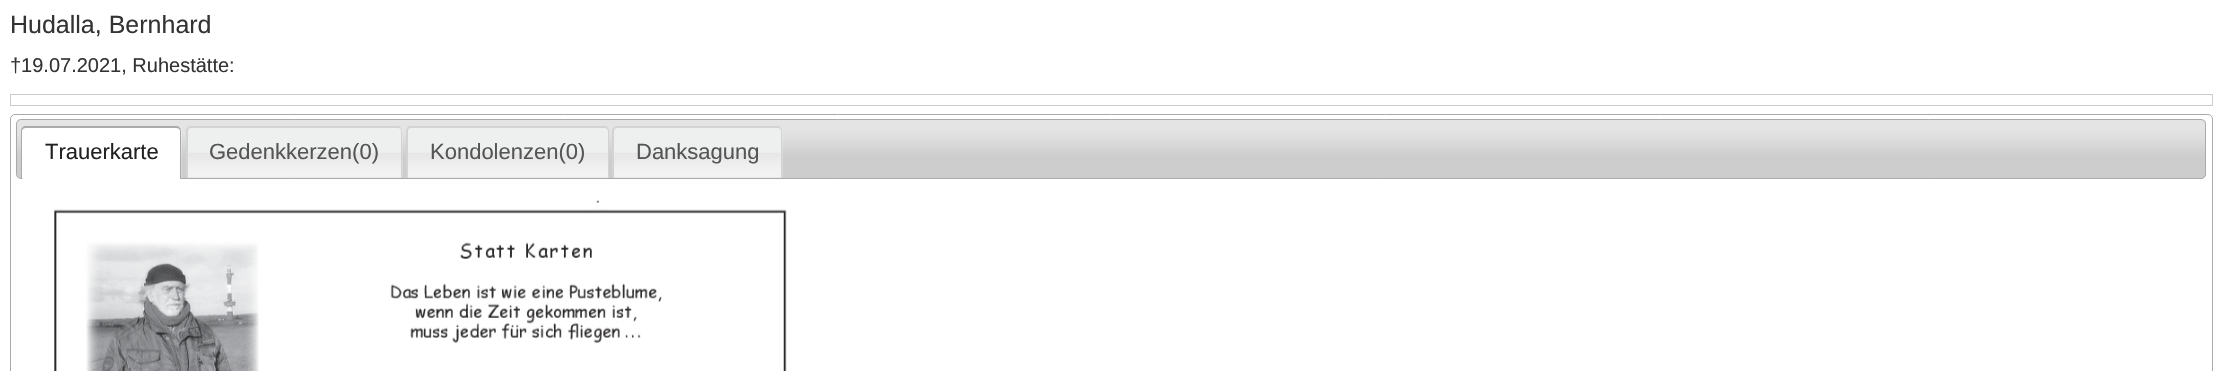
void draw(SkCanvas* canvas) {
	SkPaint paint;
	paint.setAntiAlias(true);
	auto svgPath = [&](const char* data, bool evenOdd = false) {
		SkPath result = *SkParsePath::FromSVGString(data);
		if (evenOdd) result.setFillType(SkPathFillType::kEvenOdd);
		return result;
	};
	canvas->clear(0xffffffff);
	SkFont f1(fontMgr->matchFamilyStyle("Liberation Sans", SkFontStyle::Normal()), 25);
	f1.setSubpixel(true);
	paint.setColor(0xff333333);
	canvas->drawString("Hudalla, Bernhard", 10, 33, f1, paint);
	SkFont f2(fontMgr->matchFamilyStyle("Liberation Sans", SkFontStyle::Normal()), 20);
	f2.setSubpixel(true);
	canvas->drawString("†19.07.2021, Ruhestätte:", 10, 72, f2, paint);
	paint.setStroke(true);
	paint.setStrokeWidth(1);
	paint.setColor(0xffcccccc);
	canvas->drawRect(SkRect::MakeXYWH(10.5, 94.5, 2202, 11), paint);
	paint.setColor(0xffaaaaaa);
	canvas->drawRoundRect(SkRect::MakeXYWH(10.5, 114.5, 2202, 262), 4.5, 4.5, paint);
	canvas->drawImageRect(SkImages::DeferredFromEncodedData(SkData::MakeFromFileName("img1.png")), SkRect::MakeXYWH(16, 119, 2190, 60), SkSamplingOptions());
	canvas->drawRoundRect(SkRect::MakeXYWH(16.5, 119.5, 2189, 59), 4.5, 4.5, paint);
	paint.setStroke(false);
	paint.setColor(0xffffffff);
	canvas->drawPath(svgPath("M27 128H176C178 128 180 130 180 132V179H23V132C23 130 25 128 27 128Z"), paint);
	canvas->drawImageRect(SkImages::DeferredFromEncodedData(SkData::MakeFromFileName("img2.png")), SkRect::MakeXYWH(21, 126, 161, 53), SkSamplingOptions());
	paint.setColor(0xffaaaaaa);
	canvas->drawPath(svgPath("M26 126H176C179 126 181 128 181 131V179H21V131C21 128 23 126 26 126ZM26 128H176C178 128 180 129 180 131V179H22V131C22 129 24 128 26 128Z", true), paint);
	SkFont f3(fontMgr->matchFamilyStyle("Liberation Sans", SkFontStyle::Normal()), 22);
	f3.setSubpixel(true);
	paint.setColor(0xff212121);
	canvas->drawString("Trauerkarte", 45, 159, f3, paint);
	paint.setColor(0xffe6e6e6);
	canvas->drawPath(svgPath("M192 128H397C399 128 401 130 401 132V178H188V132C188 130 190 128 192 128Z"), paint);
	canvas->drawImageRect(SkImages::DeferredFromEncodedData(SkData::MakeFromFileName("img3.png")), SkRect::MakeXYWH(186, 126, 217, 52), SkSamplingOptions());
	paint.setColor(0xffd3d3d3);
	canvas->drawPath(svgPath("M191 126H398C400 126 402 128 402 131V178H186V131C186 128 188 126 191 126ZM191 128H398C400 128 401 129 401 131V178H188V131C188 129 189 128 191 128Z", true), paint);
	paint.setColor(0xff555555);
	canvas->drawString("Gedenkkerzen(0)", 209, 159, f3, paint);
	paint.setColor(0xffe6e6e6);
	canvas->drawPath(svgPath("M412 128H604C606 128 608 130 608 132V178H408V132C408 130 410 128 412 128Z"), paint);
	canvas->drawImageRect(SkImages::DeferredFromEncodedData(SkData::MakeFromFileName("img4.png")), SkRect::MakeXYWH(406, 126, 203, 52), SkSamplingOptions());
	paint.setColor(0xffd3d3d3);
	canvas->drawPath(svgPath("M411 126H604C607 126 609 128 609 131V178H406V131C406 128 408 126 411 126ZM411 128H604C606 128 608 129 608 131V178H408V131C408 129 409 128 411 128Z", true), paint);
	paint.setColor(0xff555555);
	canvas->drawString("Kondolenzen(0)", 430, 159, f3, paint);
	paint.setColor(0xffe6e6e6);
	canvas->drawPath(svgPath("M618 128H777C779 128 781 130 781 132V178H614V132C614 130 616 128 618 128Z"), paint);
	canvas->drawImageRect(SkImages::DeferredFromEncodedData(SkData::MakeFromFileName("img5.png")), SkRect::MakeXYWH(612, 126, 171, 52), SkSamplingOptions());
	paint.setColor(0xffd3d3d3);
	canvas->drawPath(svgPath("M618 126H778C780 126 782 128 782 131V178H612V131C612 128 615 126 618 126ZM618 128H778C780 128 781 129 781 131V178H614V131C614 129 615 128 618 128Z", true), paint);
	paint.setColor(0xff555555);
	canvas->drawString("Danksagung", 636, 159, f3, paint);
	canvas->drawImageRect(SkImages::DeferredFromEncodedData(SkData::MakeFromFileName("img6.png")), SkRect::MakeXYWH(54, 200, 733, 171), SkSamplingOptions());
}
